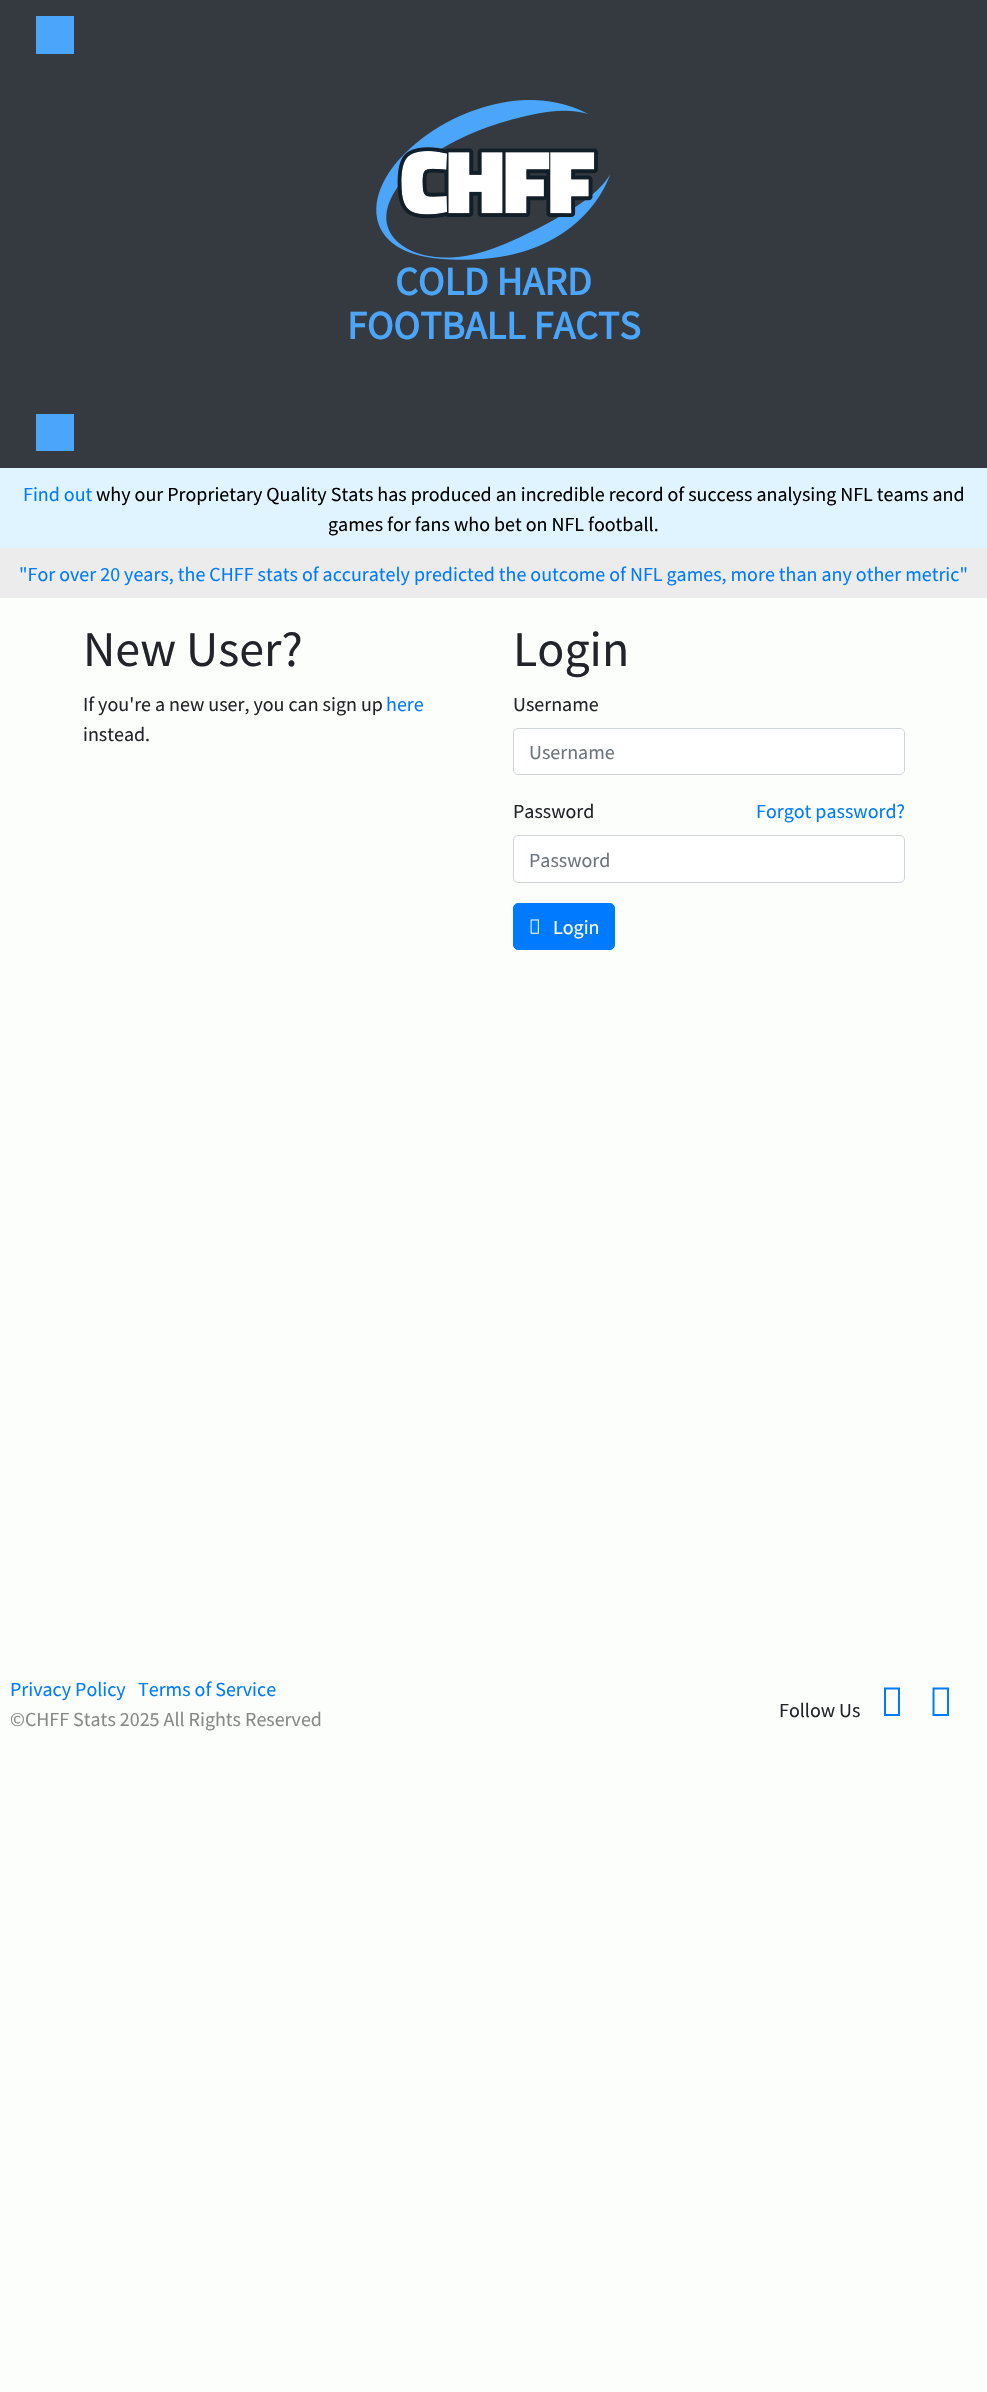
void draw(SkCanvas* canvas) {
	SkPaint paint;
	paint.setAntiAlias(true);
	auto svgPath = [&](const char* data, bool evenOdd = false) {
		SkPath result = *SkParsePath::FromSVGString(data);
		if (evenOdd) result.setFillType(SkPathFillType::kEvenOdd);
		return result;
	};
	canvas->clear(0xfffcfefc);
	paint.setColor(0xff343a40);
	canvas->drawRect(SkRect::MakeXYWH(0, 0, 987, 468), paint);
	paint.setColor(0xff4ba5fa);
	canvas->drawRect(SkRect::MakeXYWH(36, 16, 38, 38), paint);
	canvas->drawImageRect(SkImages::DeferredFromEncodedData(SkData::MakeFromFileName("img1.png")), SkRect::MakeXYWH(376, 100, 235, 160), SkSamplingOptions());
	SkFont f1(fontMgr->matchFamilyStyle("Source Sans Pro", SkFontStyle::Bold()), 40);
	f1.setSubpixel(true);
	canvas->drawString("COLD HARD", 395, 295, f1, paint);
	canvas->drawString("FOOTBALL FACTS", 347, 339, f1, paint);
	canvas->drawRect(SkRect::MakeXYWH(36, 414, 38, 37), paint);
	paint.setColor(0xffe0f4ff);
	canvas->drawRect(SkRect::MakeXYWH(0, 468, 987, 80), paint);
	SkFont f2(fontMgr->matchFamilyStyle("Source Sans Pro", SkFontStyle::Normal()), 20);
	f2.setSubpixel(true);
	paint.setColor(0xff007bff);
	canvas->drawString("Find out", 23, 501, f2, paint);
	paint.setColor(0xff000000);
	canvas->drawString("why our Proprietary Quality Stats has produced an incredible record of success analysing NFL teams and", 96, 501, f2, paint);
	canvas->drawString("games for fans who bet on NFL football.", 328, 531, f2, paint);
	paint.setColor(0xffececec);
	canvas->drawRect(SkRect::MakeXYWH(0, 548, 987, 50), paint);
	paint.setColor(0xff007bff);
	canvas->drawString("\"For over 20 years, the CHFF stats of accurately predicted the outcome of NFL games, more than any other metric\"", 19, 581, f2, paint);
	SkFont f3(fontMgr->matchFamilyStyle("Source Sans Pro", SkFontStyle::Normal()), 50);
	f3.setSubpixel(true);
	paint.setColor(0xff212529);
	canvas->drawString("New User?", 83, 666, f3, paint);
	canvas->drawString("If you're a new user, you can sign up", 83, 711, f2, paint);
	paint.setColor(0xff007bff);
	canvas->drawString("here", 386, 711, f2, paint);
	paint.setColor(0xff212529);
	canvas->drawString("instead.", 83, 741, f2, paint);
	canvas->drawString("Login", 513, 666, f3, paint);
	canvas->drawString("Username", 513, 711, f2, paint);
	paint.setColor(0xffffffff);
	canvas->drawRoundRect(SkRect::MakeXYWH(513.5, 728.5, 391, 46), 4.5, 4.5, paint);
	paint.setStroke(true);
	paint.setStrokeWidth(1);
	paint.setColor(0xffced4da);
	canvas->drawRoundRect(SkRect::MakeXYWH(513.5, 728.5, 391, 46), 4.5, 4.5, paint);
	paint.setStroke(false);
	paint.setColor(0xff6c757d);
	canvas->drawString("Username", 529, 759, f2, paint);
	paint.setColor(0xff212529);
	canvas->drawString("Password", 513, 818, f2, paint);
	paint.setColor(0xff007bff);
	canvas->drawString("Forgot password?", 756, 818, f2, paint);
	paint.setColor(0xffffffff);
	canvas->drawRoundRect(SkRect::MakeXYWH(514, 836, 390, 45), 4, 4, paint);
	paint.setStroke(true);
	paint.setColor(0xffced4da);
	canvas->drawRoundRect(SkRect::MakeXYWH(513.5, 835.5, 391, 47), 4.5, 4.5, paint);
	paint.setStroke(false);
	paint.setColor(0xff6c757d);
	canvas->drawString("Password", 529, 867, f2, paint);
	paint.setColor(0xff007bff);
	canvas->drawRoundRect(SkRect::MakeXYWH(513.5, 903.5, 101, 46), 4.5, 4.5, paint);
	paint.setStroke(true);
	canvas->drawRoundRect(SkRect::MakeXYWH(513.5, 903.5, 101, 46), 4.5, 4.5, paint);
	canvas->drawImageRect(SkImages::DeferredFromEncodedData(SkData::MakeFromFileName("img2.png")), SkRect::MakeXYWH(530, 919, 9, 15), SkSamplingOptions());
	paint.setStroke(false);
	paint.setColor(0xffffffff);
	canvas->drawString("Login", 553, 934, f2, paint);
	paint.setColor(0xff007bff);
	canvas->drawString("Privacy Policy", 10, 1696, f2, paint);
	canvas->drawString("Terms of Service", 138, 1696, f2, paint);
	paint.setColor(0xff888888);
	canvas->drawString("©CHFF Stats 2025 All Rights Reserved", 10, 1726, f2, paint);
	paint.setColor(0xff212529);
	canvas->drawString("Follow Us", 779, 1717, f2, paint);
	paint.setColor(0xff007bff);
	canvas->drawPath(svgPath("M884 1716V1687.5H900V1716ZM886 1714H898V1689.5H886Z"), paint);
	canvas->drawPath(svgPath("M932.5 1716V1687.5H949V1716ZM934.5 1714H947V1689.5H934.5Z"), paint);
}
